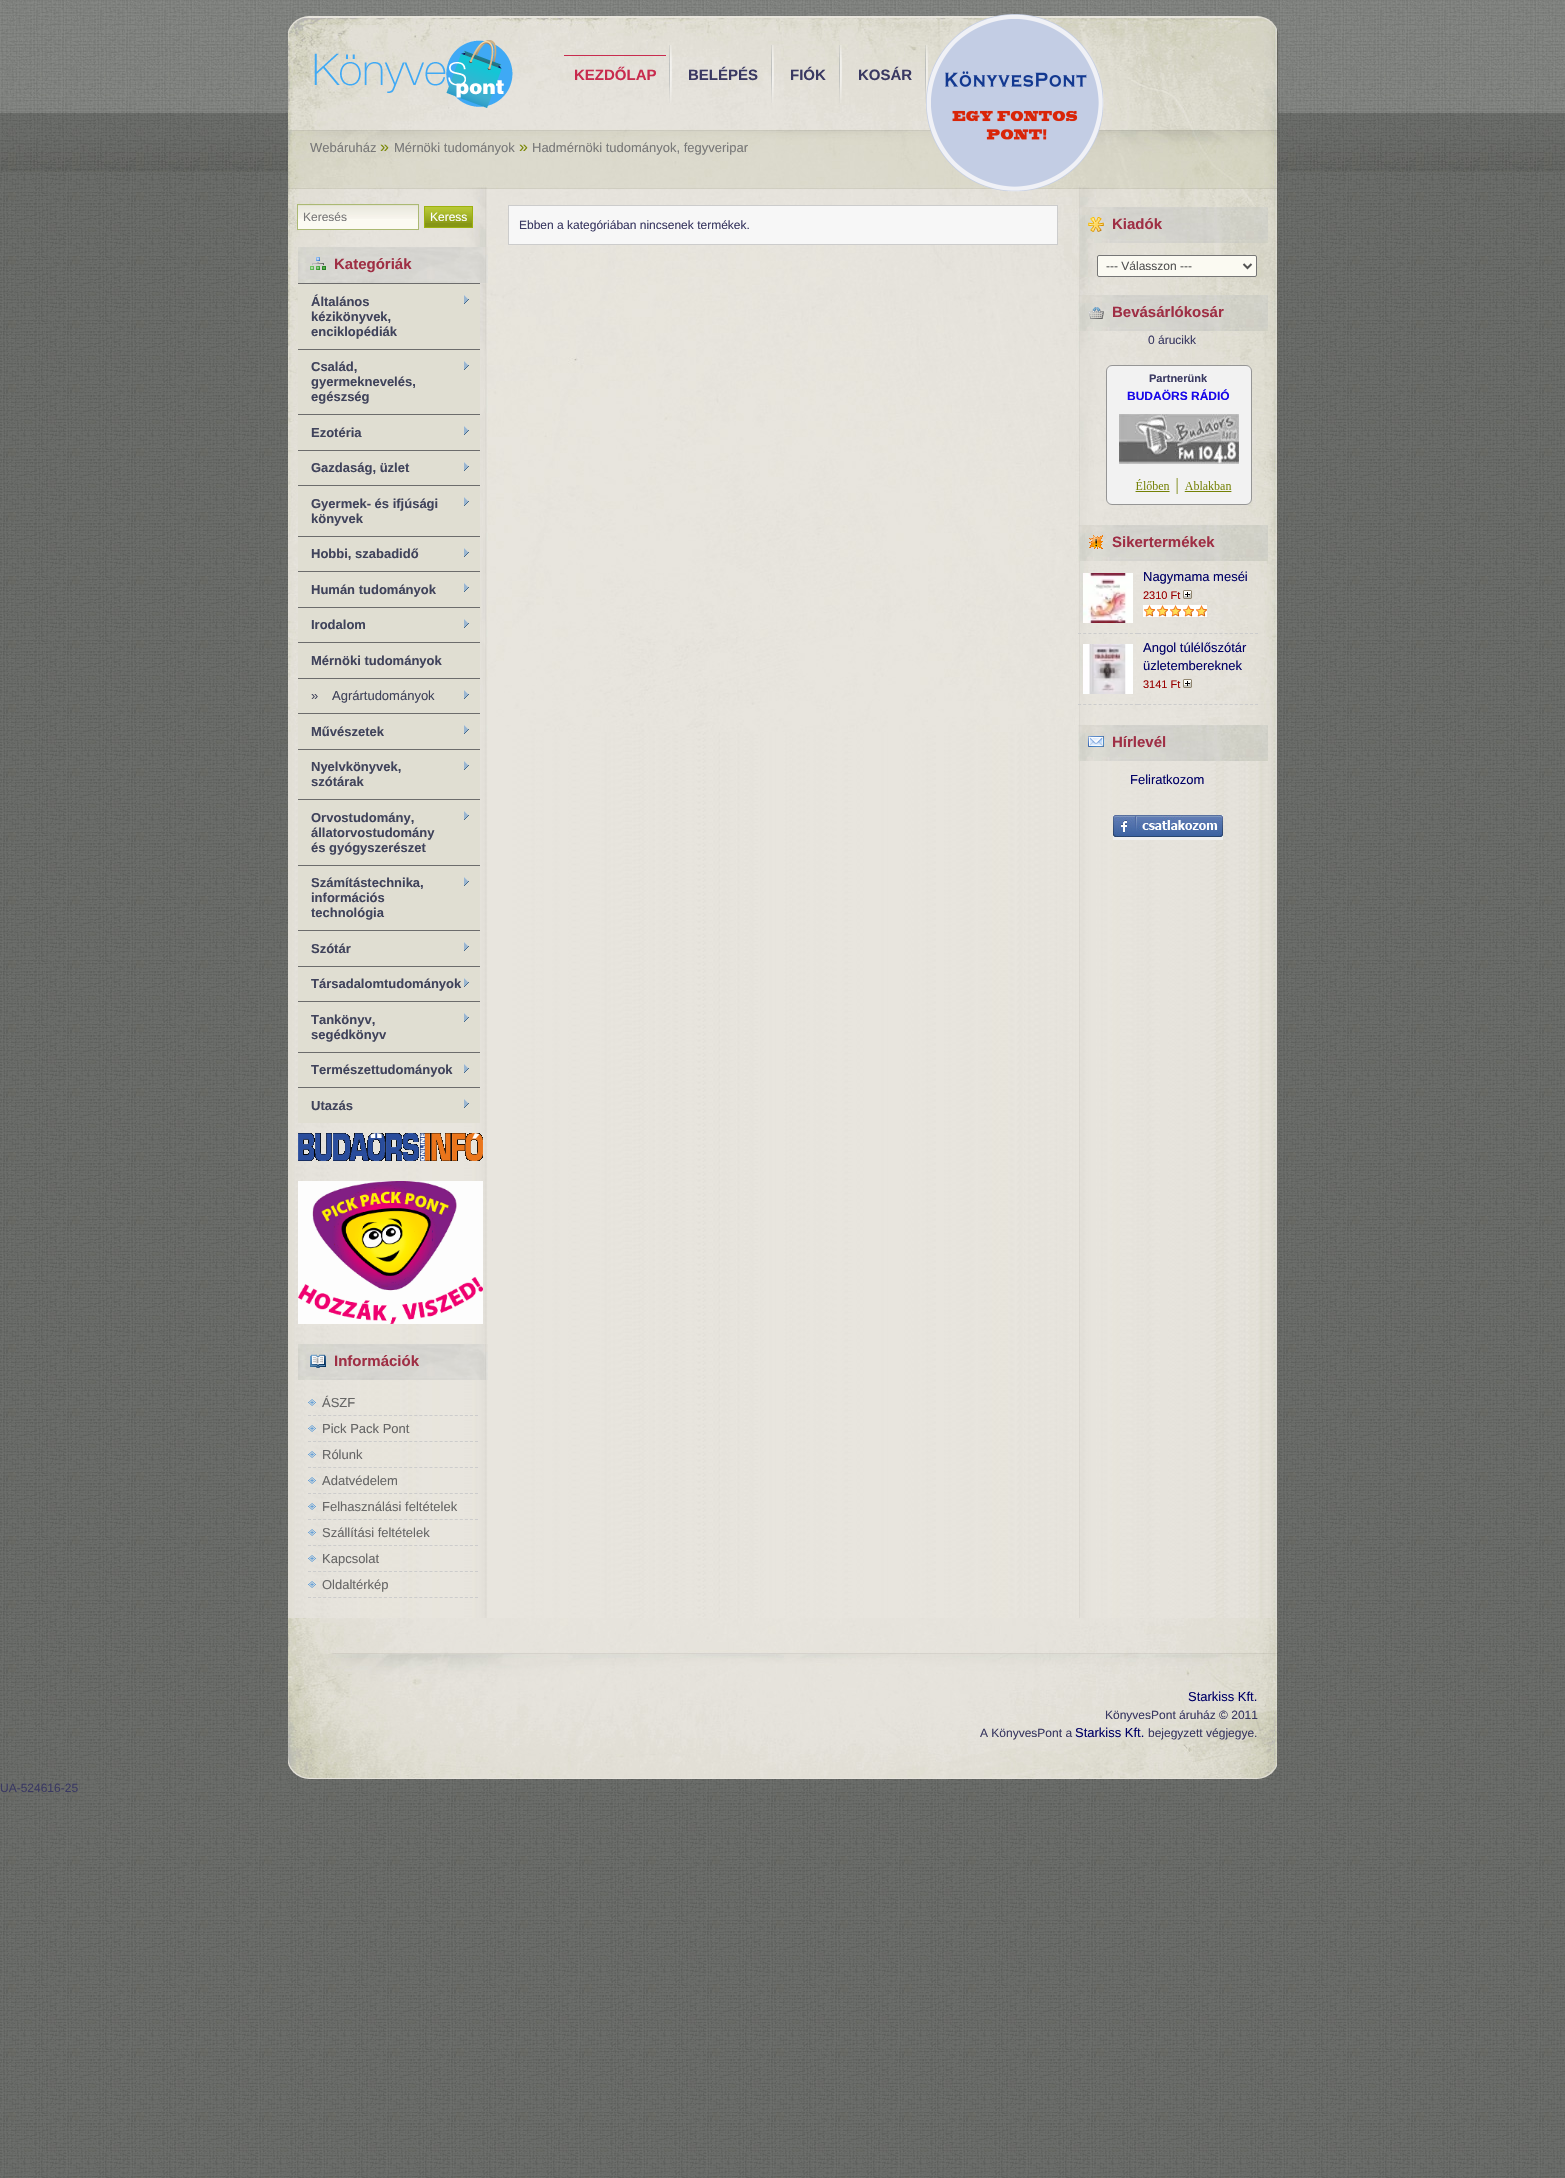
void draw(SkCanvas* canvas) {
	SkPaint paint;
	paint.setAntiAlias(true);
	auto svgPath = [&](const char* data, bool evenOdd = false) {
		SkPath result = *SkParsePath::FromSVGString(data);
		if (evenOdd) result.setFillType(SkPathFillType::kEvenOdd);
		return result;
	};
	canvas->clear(0xffffffff);
	canvas->drawImageRect(SkImages::DeferredFromEncodedData(SkData::MakeFromFileName("img1.png")), SkRect::MakeXYWH(0, 172, 1565, 2006), SkSamplingOptions());
	canvas->drawImageRect(SkImages::DeferredFromEncodedData(SkData::MakeFromFileName("img2.png")), SkRect::MakeXYWH(0, 0, 1565, 172), SkSamplingOptions());
	canvas->drawImageRect(SkImages::DeferredFromEncodedData(SkData::MakeFromFileName("img3.png")), SkRect::MakeXYWH(288, 16, 990, 1763), SkSamplingOptions());
	canvas->drawImageRect(SkImages::DeferredFromEncodedData(SkData::MakeFromFileName("img4.png")), SkRect::MakeXYWH(288, 189, 990, 543), SkSamplingOptions());
	canvas->drawImageRect(SkImages::DeferredFromEncodedData(SkData::MakeFromFileName("img5.png")), SkRect::MakeXYWH(288, 17, 990, 172), SkSamplingOptions());
	canvas->drawImageRect(SkImages::DeferredFromEncodedData(SkData::MakeFromFileName("img6.png")), SkRect::MakeXYWH(314, 40, 199, 68), SkSamplingOptions());
	canvas->drawImageRect(SkImages::DeferredFromEncodedData(SkData::MakeFromFileName("img7.png")), SkRect::MakeXYWH(669, 45, 3, 58), SkSamplingOptions());
	SkFont f1(fontMgr->matchFamilyStyle("Liberation Sans", SkFontStyle::Bold()), 15);
	f1.setSubpixel(true);
	paint.setColor(0xffc82b4e);
	canvas->drawString("KEZDŐLAP", 574, 80, f1, paint);
	canvas->drawRect(SkRect::MakeXYWH(564, 55, 102, 1), paint);
	canvas->drawImageRect(SkImages::DeferredFromEncodedData(SkData::MakeFromFileName("img8.png")), SkRect::MakeXYWH(771, 45, 3, 58), SkSamplingOptions());
	paint.setColor(0xff3a3962);
	canvas->drawString("BELÉPÉS", 688, 80, f1, paint);
	canvas->drawImageRect(SkImages::DeferredFromEncodedData(SkData::MakeFromFileName("img9.png")), SkRect::MakeXYWH(839, 45, 3, 58), SkSamplingOptions());
	canvas->drawString("FIÓK", 790, 80, f1, paint);
	canvas->drawImageRect(SkImages::DeferredFromEncodedData(SkData::MakeFromFileName("img10.png")), SkRect::MakeXYWH(925, 45, 3, 58), SkSamplingOptions());
	canvas->drawString("KOSÁR", 858, 80, f1, paint);
	SkFont f2(fontMgr->matchFamilyStyle("Liberation Sans", SkFontStyle::Normal()), 13);
	f2.setSubpixel(true);
	paint.setColor(0xff787878);
	canvas->drawString("Webáruház", 310, 152, f2, paint);
	SkFont f3(fontMgr->matchFamilyStyle("Liberation Sans", SkFontStyle::Normal()), 16);
	f3.setSubpixel(true);
	paint.setColor(0xff7c8909);
	canvas->drawString("»", 380, 152, f3, paint);
	paint.setColor(0xff787878);
	canvas->drawString("Mérnöki tudományok", 394, 152, f2, paint);
	paint.setColor(0xff7c8909);
	canvas->drawString("»", 519, 152, f3, paint);
	paint.setColor(0xff787878);
	canvas->drawString("Hadmérnöki tudományok, fegyveripar", 532, 152, f2, paint);
	canvas->drawImageRect(SkImages::DeferredFromEncodedData(SkData::MakeFromFileName("img11.png")), SkRect::MakeXYWH(926, 14, 178, 178), SkSamplingOptions());
	paint.setColor(0xfffbfaf2);
	canvas->drawRect(SkRect::MakeXYWH(298, 219, 120, 10), paint);
	canvas->drawImageRect(SkImages::DeferredFromEncodedData(SkData::MakeFromFileName("img12.png")), SkRect::MakeXYWH(298, 205, 120, 14), SkSamplingOptions());
	paint.setStroke(true);
	paint.setStrokeWidth(1);
	paint.setColor(0xffabb973);
	canvas->drawRect(SkRect::MakeXYWH(297.5, 204.5, 121, 25), paint);
	SkFont f4(fontMgr->matchFamilyStyle("Liberation Sans", SkFontStyle::Normal()), 12);
	f4.setSubpixel(true);
	paint.setStroke(false);
	paint.setColor(0xff787878);
	canvas->drawString("Keresés", 303, 221, f4, paint);
	paint.setColor(0xff869615);
	canvas->drawRect(SkRect::MakeXYWH(425, 223, 47, 4), paint);
	canvas->drawImageRect(SkImages::DeferredFromEncodedData(SkData::MakeFromFileName("img13.png")), SkRect::MakeXYWH(425, 207, 47, 16), SkSamplingOptions());
	paint.setStroke(true);
	paint.setColor(0xff9db10f);
	canvas->drawRect(SkRect::MakeXYWH(424.5, 206.5, 48, 21), paint);
	paint.setStroke(false);
	paint.setColor(0xffffffff);
	canvas->drawString("Keress", 430, 221, f4, paint);
	paint.setColor(0xfff7f7f7);
	canvas->drawRect(SkRect::MakeXYWH(508.5, 205.5, 549, 39), paint);
	paint.setStroke(true);
	paint.setColor(0xffcccccc);
	canvas->drawRect(SkRect::MakeXYWH(508.5, 205.5, 549, 39), paint);
	paint.setStroke(false);
	paint.setColor(0xff3a3962);
	canvas->drawString("Ebben a kategóriában nincsenek termékek.", 519, 229, f4, paint);
	canvas->drawImageRect(SkImages::DeferredFromEncodedData(SkData::MakeFromFileName("img14.png")), SkRect::MakeXYWH(1078, 207, 190, 36), SkSamplingOptions());
	canvas->drawImageRect(SkImages::DeferredFromEncodedData(SkData::MakeFromFileName("img15.png")), SkRect::MakeXYWH(1088, 217, 16, 15), SkSamplingOptions());
	paint.setColor(0xff9f2f45);
	canvas->drawString("Kiadók", 1112, 229, f1, paint);
	paint.setColor(0xfffbfaf2);
	canvas->drawRoundRect(SkRect::MakeXYWH(1097.5, 255.5, 159, 21), 1.5, 1.5, paint);
	paint.setStroke(true);
	paint.setColor(0xff767676);
	canvas->drawRoundRect(SkRect::MakeXYWH(1097.5, 255.5, 159, 21), 1.5, 1.5, paint);
	paint.setStrokeWidth(2);
	paint.setColor(0xff535353);
	canvas->drawPath(svgPath("M1243.5 264L1247.5 268L1251.5 264"), paint);
	paint.setStroke(false);
	canvas->drawString("--- Válasszon ---", 1106, 270, f4, paint);
	canvas->drawImageRect(SkImages::DeferredFromEncodedData(SkData::MakeFromFileName("img14.png")), SkRect::MakeXYWH(1078, 295, 190, 36), SkSamplingOptions());
	canvas->drawImageRect(SkImages::DeferredFromEncodedData(SkData::MakeFromFileName("img16.png")), SkRect::MakeXYWH(1088, 307, 16, 12), SkSamplingOptions());
	paint.setColor(0xff9f2f45);
	canvas->drawString("Bevásárlókosár", 1112, 317, f1, paint);
	paint.setColor(0xff3a3962);
	canvas->drawString("0 árucikk", 1148, 344, f4, paint);
	paint.setColor(0xfff2f2f2);
	canvas->drawRoundRect(SkRect::MakeXYWH(1106.5, 365.5, 145, 139), 5.5, 5.5, paint);
	paint.setStroke(true);
	paint.setStrokeWidth(1);
	paint.setColor(0xff959595);
	canvas->drawRoundRect(SkRect::MakeXYWH(1106.5, 365.5, 145, 139), 5.5, 5.5, paint);
	SkFont f5(fontMgr->matchFamilyStyle("Liberation Sans", SkFontStyle::Bold()), 11);
	f5.setSubpixel(true);
	paint.setStroke(false);
	paint.setColor(0xff3a3962);
	canvas->drawString("Partnerünk", 1149, 382, f5, paint);
	SkFont f6(fontMgr->matchFamilyStyle("Liberation Sans", SkFontStyle::Bold()), 12);
	f6.setSubpixel(true);
	paint.setColor(0xff1807e9);
	canvas->drawString("BUDAÖRS RÁDIÓ", 1127, 400, f6, paint);
	canvas->drawImageRect(SkImages::DeferredFromEncodedData(SkData::MakeFromFileName("img17.png")), SkRect::MakeXYWH(1119, 414, 120, 50), SkSamplingOptions());
	canvas->drawImageRect(SkImages::DeferredFromEncodedData(SkData::MakeFromFileName("img18.png")), SkRect::MakeXYWH(1135, 478, 97, 16), SkSamplingOptions());
	canvas->drawImageRect(SkImages::DeferredFromEncodedData(SkData::MakeFromFileName("img14.png")), SkRect::MakeXYWH(1078, 525, 190, 36), SkSamplingOptions());
	canvas->drawImageRect(SkImages::DeferredFromEncodedData(SkData::MakeFromFileName("img19.png")), SkRect::MakeXYWH(1089, 535, 14, 14), SkSamplingOptions());
	paint.setColor(0xff9f2f45);
	canvas->drawString("Sikertermékek", 1112, 547, f1, paint);
	paint.setStroke(true);
	paint.setColor(0xffcccccc);
	paint.setPathEffect(SkDashPathEffect::Make({{3, 2.18f}}, 0));
	canvas->drawPath(svgPath("M1078 633.5H1138"), paint);
	paint.setPathEffect(nullptr);
	canvas->drawImageRect(SkImages::DeferredFromEncodedData(SkData::MakeFromFileName("img20.png")), SkRect::MakeXYWH(1083, 573, 50, 50), SkSamplingOptions());
	paint.setPathEffect(SkDashPathEffect::Make({{3, 2.09f}}, 0));
	canvas->drawPath(svgPath("M1138 633.5H1258"), paint);
	paint.setPathEffect(nullptr);
	paint.setStroke(false);
	paint.setColor(0xff000066);
	canvas->drawString("Nagymama meséi", 1143, 581, f2, paint);
	SkFont f7(fontMgr->matchFamilyStyle("Liberation Sans", SkFontStyle::Normal()), 11);
	f7.setSubpixel(true);
	paint.setColor(0xff990000);
	canvas->drawString("2310 Ft", 1143, 599, f7, paint);
	canvas->drawImageRect(SkImages::DeferredFromEncodedData(SkData::MakeFromFileName("img21.png")), SkRect::MakeXYWH(1183, 590, 9, 9), SkSamplingOptions());
	canvas->drawImageRect(SkImages::DeferredFromEncodedData(SkData::MakeFromFileName("img22.png")), SkRect::MakeXYWH(1143, 605, 64, 12), SkSamplingOptions());
	paint.setStroke(true);
	paint.setColor(0xffcccccc);
	paint.setPathEffect(SkDashPathEffect::Make({{3, 2.18f}}, 0));
	canvas->drawPath(svgPath("M1078 704.5H1138"), paint);
	paint.setPathEffect(nullptr);
	canvas->drawImageRect(SkImages::DeferredFromEncodedData(SkData::MakeFromFileName("img23.png")), SkRect::MakeXYWH(1083, 644, 50, 50), SkSamplingOptions());
	paint.setPathEffect(SkDashPathEffect::Make({{3, 2.09f}}, 0));
	canvas->drawPath(svgPath("M1138 704.5H1258"), paint);
	paint.setPathEffect(nullptr);
	paint.setStroke(false);
	paint.setColor(0xff000066);
	canvas->drawString("Angol túlélőszótár", 1143, 652, f2, paint);
	canvas->drawString("üzletembereknek", 1143, 670, f2, paint);
	paint.setColor(0xff990000);
	canvas->drawString("3141 Ft", 1143, 688, f7, paint);
	canvas->drawImageRect(SkImages::DeferredFromEncodedData(SkData::MakeFromFileName("img21.png")), SkRect::MakeXYWH(1183, 679, 9, 9), SkSamplingOptions());
	canvas->drawImageRect(SkImages::DeferredFromEncodedData(SkData::MakeFromFileName("img14.png")), SkRect::MakeXYWH(1078, 725, 190, 36), SkSamplingOptions());
	canvas->drawImageRect(SkImages::DeferredFromEncodedData(SkData::MakeFromFileName("img24.png")), SkRect::MakeXYWH(1088, 736, 16, 11), SkSamplingOptions());
	paint.setColor(0xff9f2f45);
	canvas->drawString("Hírlevél", 1112, 747, f1, paint);
	paint.setColor(0xff000066);
	canvas->drawString("Feliratkozom", 1130, 784, f2, paint);
	paint.setColor(0xffefefef);
	canvas->drawRect(SkRect::MakeXYWH(1113, 837, 110, 3), paint);
	canvas->drawImageRect(SkImages::DeferredFromEncodedData(SkData::MakeFromFileName("img25.png")), SkRect::MakeXYWH(1113, 815, 110, 22), SkSamplingOptions());
	canvas->drawImageRect(SkImages::DeferredFromEncodedData(SkData::MakeFromFileName("img26.png")), SkRect::MakeXYWH(298, 247, 190, 36), SkSamplingOptions());
	canvas->drawImageRect(SkImages::DeferredFromEncodedData(SkData::MakeFromFileName("img27.png")), SkRect::MakeXYWH(310, 257, 16, 13), SkSamplingOptions());
	paint.setColor(0xff9f2f45);
	canvas->drawString("Kategóriák", 334, 269, f1, paint);
	paint.setColor(0xffe0ded2);
	canvas->drawRect(SkRect::MakeXYWH(298, 284, 182, 65), paint);
	paint.setColor(0xff6c6c6c);
	canvas->drawRect(SkRect::MakeXYWH(298, 283, 182, 1), paint);
	SkFont f8(fontMgr->matchFamilyStyle("Liberation Sans", SkFontStyle::Bold()), 13);
	f8.setSubpixel(true);
	paint.setColor(0xff40435b);
	canvas->drawString("Általános", 311, 306, f8, paint);
	canvas->drawImageRect(SkImages::DeferredFromEncodedData(SkData::MakeFromFileName("img28.png")), SkRect::MakeXYWH(464, 295, 5, 9), SkSamplingOptions());
	canvas->drawString("kézikönyvek,", 311, 321, f8, paint);
	canvas->drawString("enciklopédiák", 311, 336, f8, paint);
	paint.setColor(0xffe0ded2);
	canvas->drawRect(SkRect::MakeXYWH(298, 350, 182, 64), paint);
	paint.setColor(0xff6c6c6c);
	canvas->drawRect(SkRect::MakeXYWH(298, 349, 182, 1), paint);
	paint.setColor(0xff40435b);
	canvas->drawString("Család,", 311, 371, f8, paint);
	canvas->drawImageRect(SkImages::DeferredFromEncodedData(SkData::MakeFromFileName("img28.png")), SkRect::MakeXYWH(464, 361, 5, 9), SkSamplingOptions());
	canvas->drawString("gyermeknevelés,", 311, 386, f8, paint);
	canvas->drawString("egészség", 311, 401, f8, paint);
	paint.setColor(0xffe0ded2);
	canvas->drawRect(SkRect::MakeXYWH(298, 415, 182, 35), paint);
	paint.setColor(0xff6c6c6c);
	canvas->drawRect(SkRect::MakeXYWH(298, 414, 182, 1), paint);
	paint.setColor(0xff40435b);
	canvas->drawString("Ezotéria", 311, 437, f8, paint);
	canvas->drawImageRect(SkImages::DeferredFromEncodedData(SkData::MakeFromFileName("img28.png")), SkRect::MakeXYWH(464, 426, 5, 9), SkSamplingOptions());
	paint.setColor(0xffe0ded2);
	canvas->drawRect(SkRect::MakeXYWH(298, 451, 182, 34), paint);
	paint.setColor(0xff6c6c6c);
	canvas->drawRect(SkRect::MakeXYWH(298, 450, 182, 1), paint);
	paint.setColor(0xff40435b);
	canvas->drawString("Gazdaság, üzlet", 311, 472, f8, paint);
	canvas->drawImageRect(SkImages::DeferredFromEncodedData(SkData::MakeFromFileName("img28.png")), SkRect::MakeXYWH(464, 462, 5, 9), SkSamplingOptions());
	paint.setColor(0xffe0ded2);
	canvas->drawRect(SkRect::MakeXYWH(298, 486, 182, 50), paint);
	paint.setColor(0xff6c6c6c);
	canvas->drawRect(SkRect::MakeXYWH(298, 485, 182, 1), paint);
	paint.setColor(0xff40435b);
	canvas->drawString("Gyermek- és ifjúsági", 311, 508, f8, paint);
	canvas->drawImageRect(SkImages::DeferredFromEncodedData(SkData::MakeFromFileName("img28.png")), SkRect::MakeXYWH(464, 497, 5, 9), SkSamplingOptions());
	canvas->drawString("könyvek", 311, 523, f8, paint);
	paint.setColor(0xffe0ded2);
	canvas->drawRect(SkRect::MakeXYWH(298, 537, 182, 34), paint);
	paint.setColor(0xff6c6c6c);
	canvas->drawRect(SkRect::MakeXYWH(298, 536, 182, 1), paint);
	paint.setColor(0xff40435b);
	canvas->drawString("Hobbi, szabadidő", 311, 558, f8, paint);
	canvas->drawImageRect(SkImages::DeferredFromEncodedData(SkData::MakeFromFileName("img28.png")), SkRect::MakeXYWH(464, 548, 5, 9), SkSamplingOptions());
	paint.setColor(0xffe0ded2);
	canvas->drawRect(SkRect::MakeXYWH(298, 572, 182, 35), paint);
	paint.setColor(0xff6c6c6c);
	canvas->drawRect(SkRect::MakeXYWH(298, 571, 182, 1), paint);
	paint.setColor(0xff40435b);
	canvas->drawString("Humán tudományok", 311, 594, f8, paint);
	canvas->drawImageRect(SkImages::DeferredFromEncodedData(SkData::MakeFromFileName("img28.png")), SkRect::MakeXYWH(464, 583, 5, 9), SkSamplingOptions());
	paint.setColor(0xffe0ded2);
	canvas->drawRect(SkRect::MakeXYWH(298, 608, 182, 34), paint);
	paint.setColor(0xff6c6c6c);
	canvas->drawRect(SkRect::MakeXYWH(298, 607, 182, 1), paint);
	paint.setColor(0xff40435b);
	canvas->drawString("Irodalom", 311, 629, f8, paint);
	canvas->drawImageRect(SkImages::DeferredFromEncodedData(SkData::MakeFromFileName("img28.png")), SkRect::MakeXYWH(464, 619, 5, 9), SkSamplingOptions());
	paint.setColor(0xffe0ded2);
	canvas->drawRect(SkRect::MakeXYWH(298, 643, 182, 35), paint);
	paint.setColor(0xff6c6c6c);
	canvas->drawRect(SkRect::MakeXYWH(298, 642, 182, 1), paint);
	paint.setColor(0xff40435b);
	canvas->drawString("Mérnöki tudományok", 311, 665, f8, paint);
	paint.setColor(0xffe0ded2);
	canvas->drawRect(SkRect::MakeXYWH(298, 679, 182, 34), paint);
	paint.setColor(0xff6c6c6c);
	canvas->drawRect(SkRect::MakeXYWH(298, 678, 182, 1), paint);
	paint.setColor(0xff40435b);
	canvas->drawString("»", 311, 700, f2, paint);
	canvas->drawString("Agrártudományok", 332, 700, f2, paint);
	canvas->drawImageRect(SkImages::DeferredFromEncodedData(SkData::MakeFromFileName("img28.png")), SkRect::MakeXYWH(464, 690, 5, 9), SkSamplingOptions());
	paint.setColor(0xffe0ded2);
	canvas->drawRect(SkRect::MakeXYWH(298, 714, 182, 35), paint);
	paint.setColor(0xff6c6c6c);
	canvas->drawRect(SkRect::MakeXYWH(298, 713, 182, 1), paint);
	paint.setColor(0xff40435b);
	canvas->drawString("Művészetek", 311, 736, f8, paint);
	canvas->drawImageRect(SkImages::DeferredFromEncodedData(SkData::MakeFromFileName("img28.png")), SkRect::MakeXYWH(464, 725, 5, 9), SkSamplingOptions());
	paint.setColor(0xffe0ded2);
	canvas->drawRect(SkRect::MakeXYWH(298, 750, 182, 49), paint);
	paint.setColor(0xff6c6c6c);
	canvas->drawRect(SkRect::MakeXYWH(298, 749, 182, 1), paint);
	paint.setColor(0xff40435b);
	canvas->drawString("Nyelvkönyvek,", 311, 771, f8, paint);
	canvas->drawImageRect(SkImages::DeferredFromEncodedData(SkData::MakeFromFileName("img28.png")), SkRect::MakeXYWH(464, 761, 5, 9), SkSamplingOptions());
	canvas->drawString("szótárak", 311, 786, f8, paint);
	paint.setColor(0xffe0ded2);
	canvas->drawRect(SkRect::MakeXYWH(298, 800, 182, 65), paint);
	paint.setColor(0xff6c6c6c);
	canvas->drawRect(SkRect::MakeXYWH(298, 799, 182, 1), paint);
	paint.setColor(0xff40435b);
	canvas->drawString("Orvostudomány,", 311, 822, f8, paint);
	canvas->drawImageRect(SkImages::DeferredFromEncodedData(SkData::MakeFromFileName("img28.png")), SkRect::MakeXYWH(464, 811, 5, 9), SkSamplingOptions());
	canvas->drawString("állatorvostudomány", 311, 837, f8, paint);
	canvas->drawString("és gyógyszerészet", 311, 852, f8, paint);
	paint.setColor(0xffe0ded2);
	canvas->drawRect(SkRect::MakeXYWH(298, 866, 182, 64), paint);
	paint.setColor(0xff6c6c6c);
	canvas->drawRect(SkRect::MakeXYWH(298, 865, 182, 1), paint);
	paint.setColor(0xff40435b);
	canvas->drawString("Számítástechnika,", 311, 887, f8, paint);
	canvas->drawImageRect(SkImages::DeferredFromEncodedData(SkData::MakeFromFileName("img28.png")), SkRect::MakeXYWH(464, 877, 5, 9), SkSamplingOptions());
	canvas->drawString("információs", 311, 902, f8, paint);
	canvas->drawString("technológia", 311, 917, f8, paint);
	paint.setColor(0xffe0ded2);
	canvas->drawRect(SkRect::MakeXYWH(298, 931, 182, 35), paint);
	paint.setColor(0xff6c6c6c);
	canvas->drawRect(SkRect::MakeXYWH(298, 930, 182, 1), paint);
	paint.setColor(0xff40435b);
	canvas->drawString("Szótár", 311, 953, f8, paint);
	canvas->drawImageRect(SkImages::DeferredFromEncodedData(SkData::MakeFromFileName("img28.png")), SkRect::MakeXYWH(464, 942, 5, 9), SkSamplingOptions());
	paint.setColor(0xffe0ded2);
	canvas->drawRect(SkRect::MakeXYWH(298, 967, 182, 34), paint);
	paint.setColor(0xff6c6c6c);
	canvas->drawRect(SkRect::MakeXYWH(298, 966, 182, 1), paint);
	paint.setColor(0xff40435b);
	canvas->drawString("Társadalomtudományok", 311, 988, f8, paint);
	canvas->drawImageRect(SkImages::DeferredFromEncodedData(SkData::MakeFromFileName("img28.png")), SkRect::MakeXYWH(464, 978, 5, 9), SkSamplingOptions());
	paint.setColor(0xffe0ded2);
	canvas->drawRect(SkRect::MakeXYWH(298, 1002, 182, 50), paint);
	paint.setColor(0xff6c6c6c);
	canvas->drawRect(SkRect::MakeXYWH(298, 1001, 182, 1), paint);
	paint.setColor(0xff40435b);
	canvas->drawString("Tankönyv,", 311, 1024, f8, paint);
	canvas->drawImageRect(SkImages::DeferredFromEncodedData(SkData::MakeFromFileName("img28.png")), SkRect::MakeXYWH(464, 1013, 5, 9), SkSamplingOptions());
	canvas->drawString("segédkönyv", 311, 1039, f8, paint);
	paint.setColor(0xffe0ded2);
	canvas->drawRect(SkRect::MakeXYWH(298, 1053, 182, 34), paint);
	paint.setColor(0xff6c6c6c);
	canvas->drawRect(SkRect::MakeXYWH(298, 1052, 182, 1), paint);
	paint.setColor(0xff40435b);
	canvas->drawString("Természettudományok", 311, 1074, f8, paint);
	canvas->drawImageRect(SkImages::DeferredFromEncodedData(SkData::MakeFromFileName("img28.png")), SkRect::MakeXYWH(464, 1064, 5, 9), SkSamplingOptions());
	paint.setColor(0xffe0ded2);
	canvas->drawRect(SkRect::MakeXYWH(298, 1088, 182, 35), paint);
	paint.setColor(0xff6c6c6c);
	canvas->drawRect(SkRect::MakeXYWH(298, 1087, 182, 1), paint);
	paint.setColor(0xff40435b);
	canvas->drawString("Utazás", 311, 1110, f8, paint);
	canvas->drawImageRect(SkImages::DeferredFromEncodedData(SkData::MakeFromFileName("img28.png")), SkRect::MakeXYWH(464, 1099, 5, 9), SkSamplingOptions());
	canvas->drawImageRect(SkImages::DeferredFromEncodedData(SkData::MakeFromFileName("img29.png")), SkRect::MakeXYWH(298, 1133, 185, 28), SkSamplingOptions());
	canvas->drawImageRect(SkImages::DeferredFromEncodedData(SkData::MakeFromFileName("img30.png")), SkRect::MakeXYWH(298, 1181, 185, 143), SkSamplingOptions());
	canvas->drawImageRect(SkImages::DeferredFromEncodedData(SkData::MakeFromFileName("img26.png")), SkRect::MakeXYWH(298, 1344, 190, 36), SkSamplingOptions());
	canvas->drawImageRect(SkImages::DeferredFromEncodedData(SkData::MakeFromFileName("img31.png")), SkRect::MakeXYWH(310, 1354, 16, 14), SkSamplingOptions());
	paint.setColor(0xff9f2f45);
	canvas->drawString("Információk", 334, 1366, f1, paint);
	canvas->drawImageRect(SkImages::DeferredFromEncodedData(SkData::MakeFromFileName("img32.png")), SkRect::MakeXYWH(308, 1399, 8, 7), SkSamplingOptions());
	paint.setStroke(true);
	paint.setColor(0xffcccccc);
	paint.setPathEffect(SkDashPathEffect::Make({{3, 2.06f}}, 0));
	canvas->drawPath(svgPath("M308 1415.5H478"), paint);
	paint.setPathEffect(nullptr);
	paint.setStroke(false);
	paint.setColor(0xff666666);
	canvas->drawString("ÁSZF", 322, 1407, f2, paint);
	canvas->drawImageRect(SkImages::DeferredFromEncodedData(SkData::MakeFromFileName("img33.png")), SkRect::MakeXYWH(308, 1425, 8, 7), SkSamplingOptions());
	paint.setStroke(true);
	paint.setColor(0xffcccccc);
	paint.setPathEffect(SkDashPathEffect::Make({{3, 2.06f}}, 0));
	canvas->drawPath(svgPath("M308 1441.5H478"), paint);
	paint.setPathEffect(nullptr);
	paint.setStroke(false);
	paint.setColor(0xff666666);
	canvas->drawString("Pick Pack Pont", 322, 1433, f2, paint);
	canvas->drawImageRect(SkImages::DeferredFromEncodedData(SkData::MakeFromFileName("img34.png")), SkRect::MakeXYWH(308, 1451, 8, 7), SkSamplingOptions());
	paint.setStroke(true);
	paint.setColor(0xffcccccc);
	paint.setPathEffect(SkDashPathEffect::Make({{3, 2.06f}}, 0));
	canvas->drawPath(svgPath("M308 1467.5H478"), paint);
	paint.setPathEffect(nullptr);
	paint.setStroke(false);
	paint.setColor(0xff666666);
	canvas->drawString("Rólunk", 322, 1459, f2, paint);
	canvas->drawImageRect(SkImages::DeferredFromEncodedData(SkData::MakeFromFileName("img35.png")), SkRect::MakeXYWH(308, 1477, 8, 7), SkSamplingOptions());
	paint.setStroke(true);
	paint.setColor(0xffcccccc);
	paint.setPathEffect(SkDashPathEffect::Make({{3, 2.06f}}, 0));
	canvas->drawPath(svgPath("M308 1493.5H478"), paint);
	paint.setPathEffect(nullptr);
	paint.setStroke(false);
	paint.setColor(0xff666666);
	canvas->drawString("Adatvédelem", 322, 1485, f2, paint);
	canvas->drawImageRect(SkImages::DeferredFromEncodedData(SkData::MakeFromFileName("img36.png")), SkRect::MakeXYWH(308, 1503, 8, 7), SkSamplingOptions());
	paint.setStroke(true);
	paint.setColor(0xffcccccc);
	paint.setPathEffect(SkDashPathEffect::Make({{3, 2.06f}}, 0));
	canvas->drawPath(svgPath("M308 1519.5H478"), paint);
	paint.setPathEffect(nullptr);
	paint.setStroke(false);
	paint.setColor(0xff666666);
	canvas->drawString("Felhasználási feltételek", 322, 1511, f2, paint);
	canvas->drawImageRect(SkImages::DeferredFromEncodedData(SkData::MakeFromFileName("img37.png")), SkRect::MakeXYWH(308, 1529, 8, 7), SkSamplingOptions());
	paint.setStroke(true);
	paint.setColor(0xffcccccc);
	paint.setPathEffect(SkDashPathEffect::Make({{3, 2.06f}}, 0));
	canvas->drawPath(svgPath("M308 1545.5H478"), paint);
	paint.setPathEffect(nullptr);
	paint.setStroke(false);
	paint.setColor(0xff666666);
	canvas->drawString("Szállítási feltételek", 322, 1537, f2, paint);
	canvas->drawImageRect(SkImages::DeferredFromEncodedData(SkData::MakeFromFileName("img38.png")), SkRect::MakeXYWH(308, 1555, 8, 7), SkSamplingOptions());
	paint.setStroke(true);
	paint.setColor(0xffcccccc);
	paint.setPathEffect(SkDashPathEffect::Make({{3, 2.06f}}, 0));
	canvas->drawPath(svgPath("M308 1571.5H478"), paint);
	paint.setPathEffect(nullptr);
	paint.setStroke(false);
	paint.setColor(0xff666666);
	canvas->drawString("Kapcsolat", 322, 1563, f2, paint);
	canvas->drawImageRect(SkImages::DeferredFromEncodedData(SkData::MakeFromFileName("img32.png")), SkRect::MakeXYWH(308, 1581, 8, 7), SkSamplingOptions());
	paint.setStroke(true);
	paint.setColor(0xffcccccc);
	paint.setPathEffect(SkDashPathEffect::Make({{3, 2.06f}}, 0));
	canvas->drawPath(svgPath("M308 1597.5H478"), paint);
	paint.setPathEffect(nullptr);
	paint.setStroke(false);
	paint.setColor(0xff666666);
	canvas->drawString("Oldaltérkép", 322, 1589, f2, paint);
	canvas->drawImageRect(SkImages::DeferredFromEncodedData(SkData::MakeFromFileName("img39.png")), SkRect::MakeXYWH(288, 1618, 990, 160), SkSamplingOptions());
	paint.setColor(0xff000066);
	canvas->drawString("Starkiss Kft.", 1188, 1701, f2, paint);
	paint.setColor(0xff3a3962);
	canvas->drawString("KönyvesPont áruház © 2011", 1105, 1719, f4, paint);
	canvas->drawString("A KönyvesPont a", 980, 1737, f4, paint);
	paint.setColor(0xff000066);
	canvas->drawString("Starkiss Kft.", 1075, 1737, f2, paint);
	paint.setColor(0xff3a3962);
	canvas->drawString("bejegyzett végjegye.", 1148, 1737, f4, paint);
	canvas->drawString("UA-524616-25", 0, 1792, f4, paint);
}
